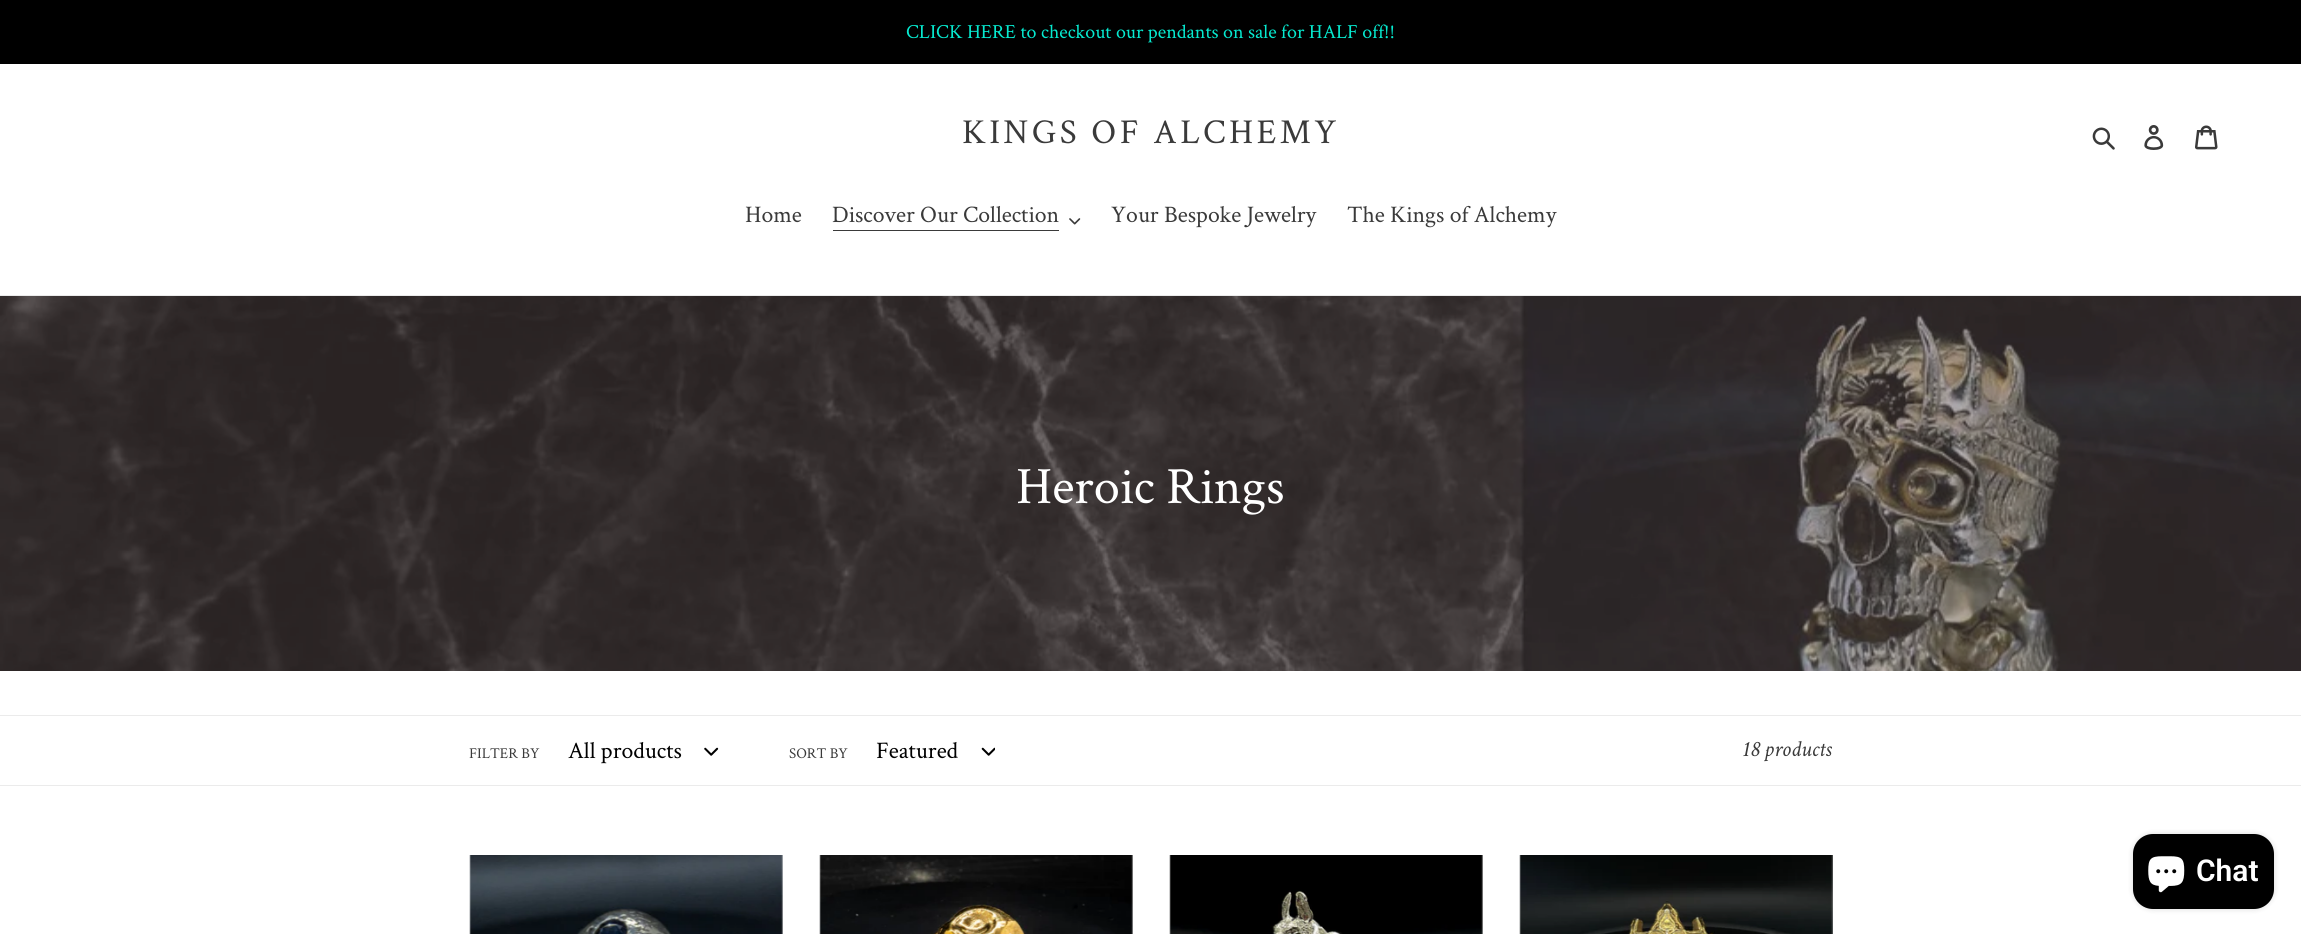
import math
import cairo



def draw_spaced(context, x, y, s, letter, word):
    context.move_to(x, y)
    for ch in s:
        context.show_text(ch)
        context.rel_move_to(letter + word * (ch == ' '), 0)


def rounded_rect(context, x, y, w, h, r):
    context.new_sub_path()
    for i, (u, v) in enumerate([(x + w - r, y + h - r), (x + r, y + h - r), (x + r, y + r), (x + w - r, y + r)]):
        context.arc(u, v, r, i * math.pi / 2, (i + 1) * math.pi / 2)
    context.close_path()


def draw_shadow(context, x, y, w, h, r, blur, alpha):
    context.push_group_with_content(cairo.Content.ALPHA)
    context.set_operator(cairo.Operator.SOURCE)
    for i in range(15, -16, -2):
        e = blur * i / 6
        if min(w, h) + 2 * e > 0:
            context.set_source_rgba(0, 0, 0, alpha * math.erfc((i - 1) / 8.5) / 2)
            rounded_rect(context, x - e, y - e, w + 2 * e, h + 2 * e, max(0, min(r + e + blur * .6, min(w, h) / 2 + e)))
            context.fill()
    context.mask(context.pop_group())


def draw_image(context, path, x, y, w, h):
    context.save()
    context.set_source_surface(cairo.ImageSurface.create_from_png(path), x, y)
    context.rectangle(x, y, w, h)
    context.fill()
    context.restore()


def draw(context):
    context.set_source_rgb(1, 1, 1)
    context.paint()
    context.set_source_rgb(0, 0, 0)
    context.rectangle(0, 0, 2301, 64)
    context.fill()
    draw_image(context, "images/1.png", 2092, 127, 23, 23)
    draw_image(context, "images/2.png", 2144, 125, 20, 25)
    draw_image(context, "images/3.png", 2195, 125, 23, 25)
    context.set_source_rgb(235 / 255, 235 / 255, 235 / 255)
    context.rectangle(0, 295, 2301, 1)
    context.fill()
    context.set_source_rgb(58 / 255, 58 / 255, 58 / 255)
    context.rectangle(833, 230, 226, 1)
    context.fill()
    draw_image(context, "images/4.png", 1069, 218, 12, 7)
    draw_image(context, "images/5.png", 0, 296, 2301, 375)
    context.set_source_rgb(235 / 255, 235 / 255, 235 / 255)
    context.rectangle(0, 715, 2301, 1)
    context.fill()
    context.rectangle(0, 785, 2301, 1)
    context.fill()
    draw_image(context, "images/6.png", 704, 747, 15, 9)
    draw_image(context, "images/7.png", 981, 747, 14, 9)
    draw_image(context, "images/8.png", 469, 855, 314, 79)
    draw_image(context, "images/9.png", 819, 855, 314, 79)
    draw_image(context, "images/10.png", 1169, 855, 314, 79)
    draw_image(context, "images/11.png", 1519, 855, 314, 79)
    context.set_source_rgb(0, 0, 0)
    draw_shadow(context, 2133, 834, 141, 75, 20, 3, 0.15)
    context.set_source_rgb(0, 0, 0)
    rounded_rect(context, 2133, 834, 141, 75, 20)
    context.fill()
    draw_image(context, "images/12.png", 2148, 856, 37, 37)
    context.select_font_face("Crimson Text")
    context.set_font_size(20)
    context.set_source_rgb(6 / 255, 234 / 255, 208 / 255)
    context.move_to(906, 38)
    context.show_text("CLICK HERE to checkout our pendants on sale for HALF off!!")
    context.set_font_size(35)
    context.set_source_rgb(58 / 255, 58 / 255, 58 / 255)
    draw_spaced(context, 962, 143, "KINGS OF ALCHEMY", 3.5, 0)
    context.set_font_size(23.75)
    context.move_to(745, 222)
    context.show_text("Home")
    context.move_to(832, 222)
    context.show_text("Discover Our Collection")
    context.move_to(1111, 222)
    context.show_text("Your Bespoke Jewelry")
    context.move_to(1347, 222)
    context.show_text("The Kings of Alchemy")
    context.set_font_size(52.5)
    context.set_source_rgb(1, 1, 1)
    context.move_to(1016, 503)
    context.show_text("Heroic Rings")
    context.set_font_size(15)
    context.set_source_rgb(58 / 255, 58 / 255, 58 / 255)
    context.move_to(469, 758)
    context.show_text("FILTER BY")
    context.set_font_size(23.75)
    context.set_source_rgb(0, 0, 0)
    context.move_to(568, 758)
    context.show_text("All products")
    context.set_font_size(15)
    context.set_source_rgb(58 / 255, 58 / 255, 58 / 255)
    context.move_to(789, 758)
    context.show_text("SORT BY")
    context.set_font_size(23.75)
    context.set_source_rgb(0, 0, 0)
    context.move_to(876, 758)
    context.show_text("Featured")
    context.select_font_face("Crimson Text", cairo.FontSlant.ITALIC)
    context.set_font_size(22.5)
    context.set_source_rgb(58 / 255, 58 / 255, 58 / 255)
    context.move_to(1741, 756)
    context.show_text("18 products")
    context.select_font_face("Roboto SemiBold")
    context.set_font_size(30)
    context.set_source_rgb(1, 1, 1)
    context.move_to(2196, 881)
    context.show_text("Chat")


surface = cairo.ImageSurface(cairo.Format.RGB24, 2301, 934)
context = cairo.Context(surface)
options = cairo.FontOptions()
options.set_hint_metrics(cairo.HintMetrics.OFF)
options.set_hint_style(cairo.HintStyle.NONE)
context.set_font_options(options)
context.set_miter_limit(4)
draw(context)
surface.write_to_png("out.png")
